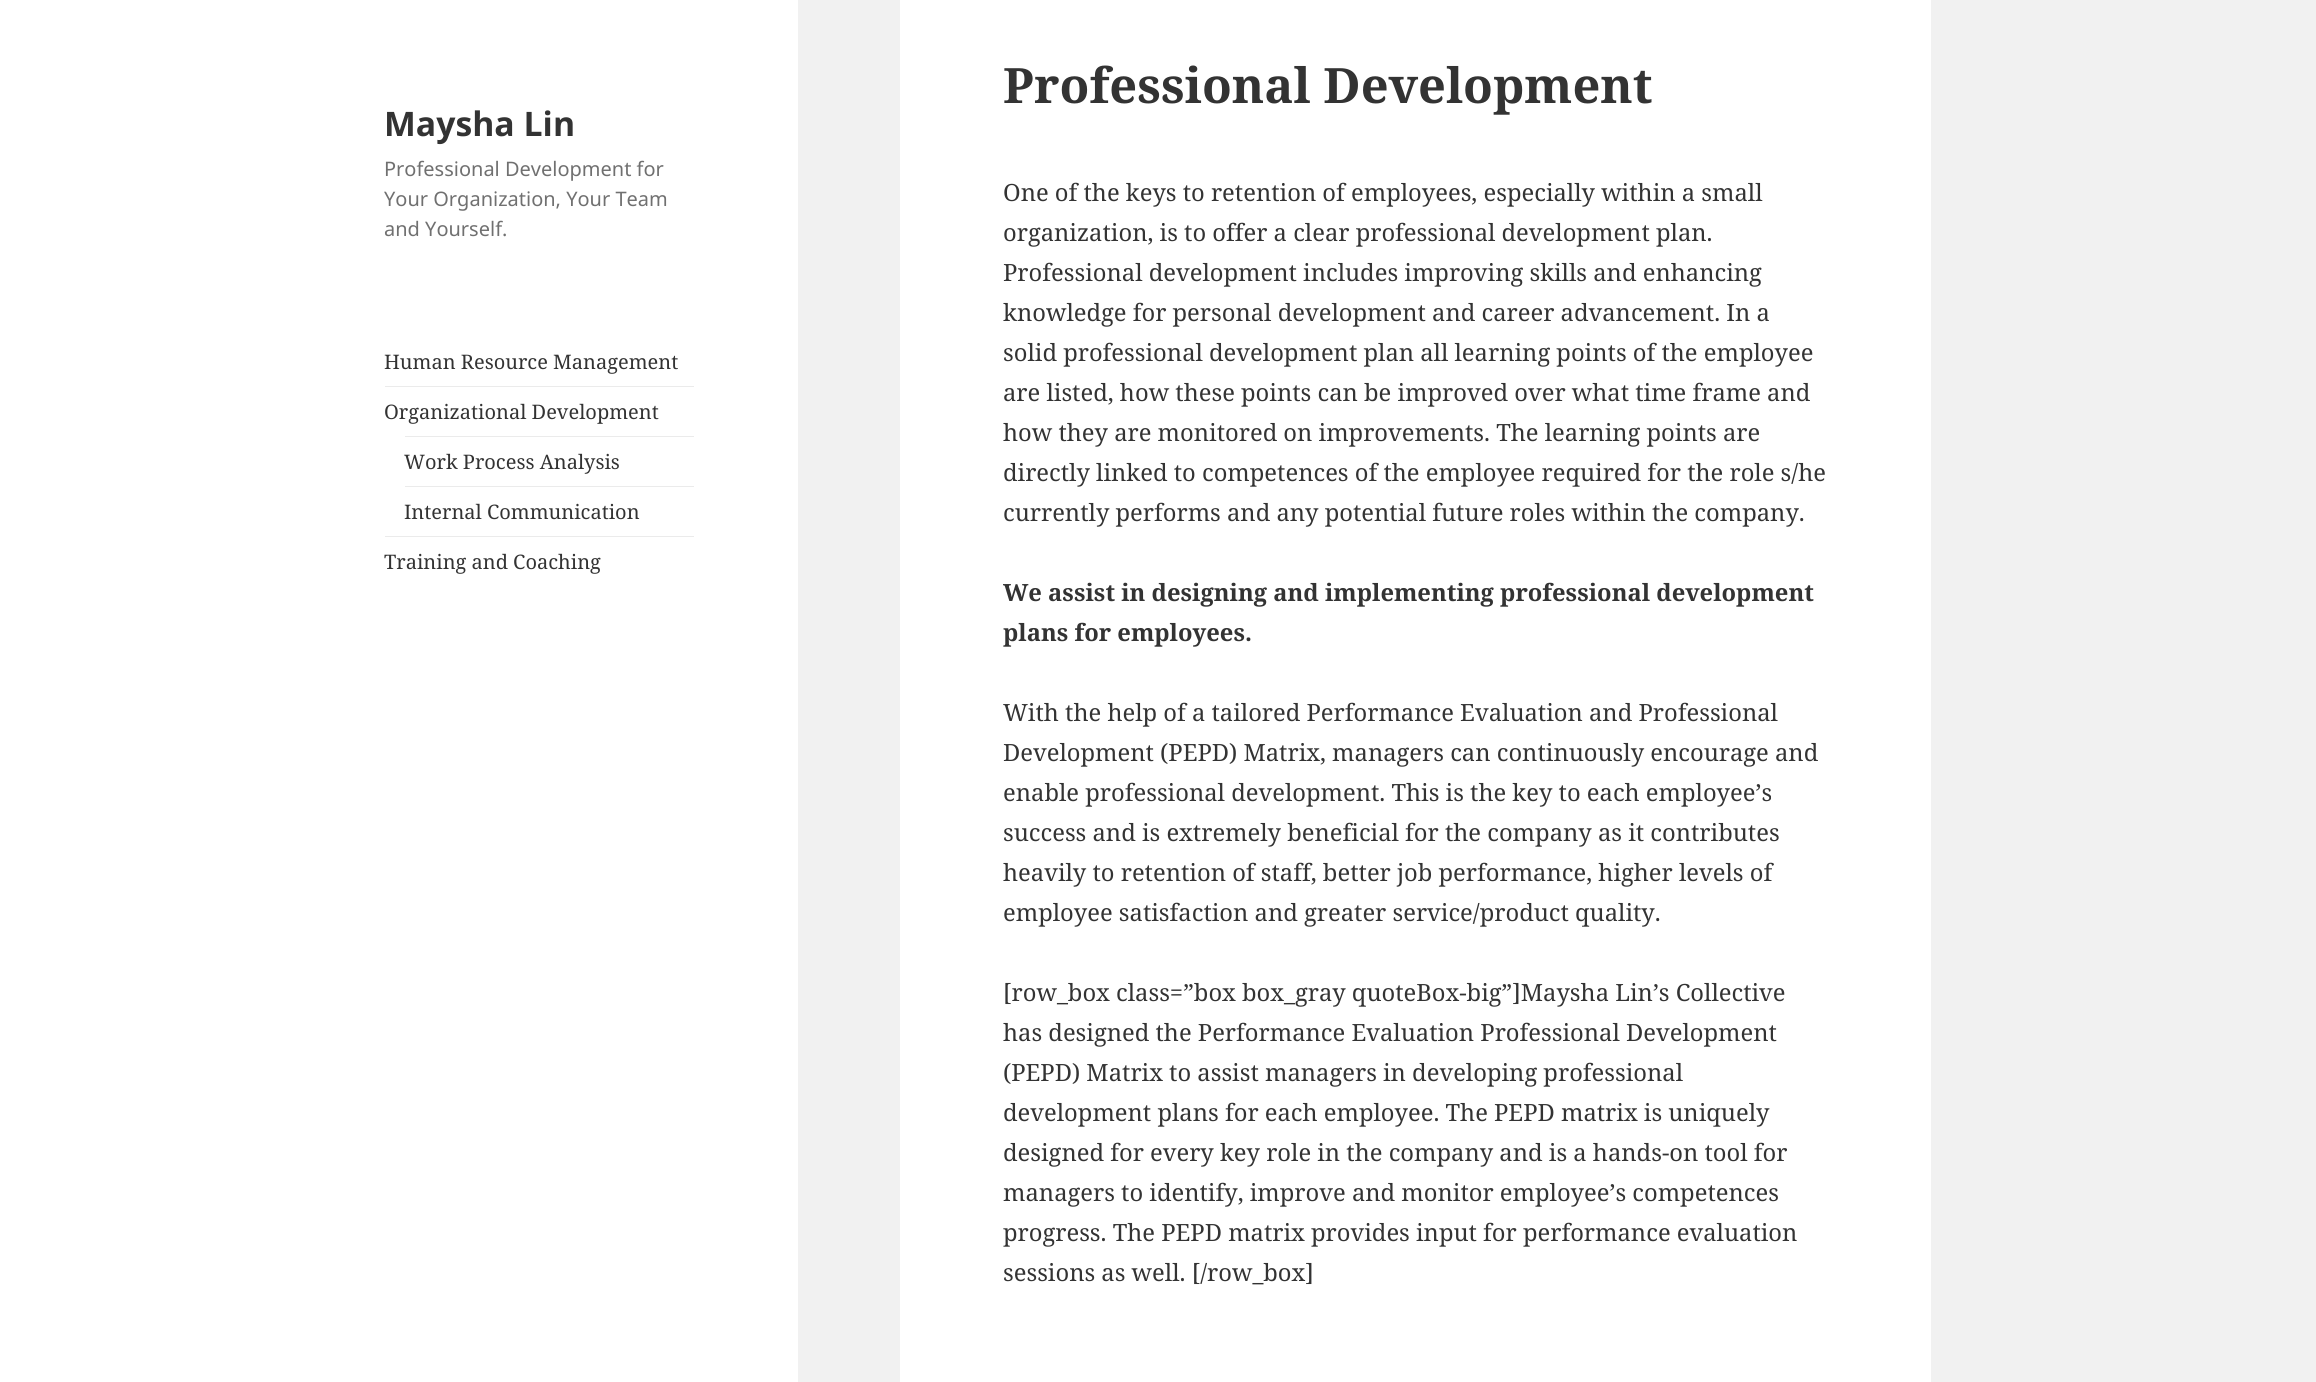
import math
import cairo



def draw(context):
    context.set_source_rgb(241 / 255, 241 / 255, 241 / 255)
    context.paint()
    context.set_source_rgb(1, 1, 1)
    context.rectangle(0, 0, 798, 1382)
    context.fill()
    context.set_source_rgb(235 / 255, 235 / 255, 235 / 255)
    context.rectangle(385, 386, 309, 1)
    context.fill()
    context.rectangle(405, 436, 289, 1)
    context.fill()
    context.rectangle(405, 486, 289, 1)
    context.fill()
    context.rectangle(385, 536, 309, 1)
    context.fill()
    context.set_source_rgb(1, 1, 1)
    context.rectangle(900, 0, 1031, 1382)
    context.fill()
    context.select_font_face("Noto Sans", cairo.FontSlant.NORMAL, cairo.FontWeight.BOLD)
    context.set_font_size(33.75)
    context.set_source_rgb(51 / 255, 51 / 255, 51 / 255)
    context.move_to(384, 136)
    context.show_text("Maysha Lin")
    context.select_font_face("Noto Sans")
    context.set_font_size(20)
    context.set_source_rgb(112 / 255, 112 / 255, 112 / 255)
    context.move_to(384, 176)
    context.show_text("Professional Development for")
    context.move_to(384, 206)
    context.show_text("Your Organization, Your Team")
    context.move_to(384, 236)
    context.show_text("and Yourself.")
    context.select_font_face("Noto Serif")
    context.set_source_rgb(51 / 255, 51 / 255, 51 / 255)
    context.move_to(384, 369)
    context.show_text("Human Resource Management")
    context.move_to(384, 419)
    context.show_text("Organizational Development")
    context.move_to(404, 469)
    context.show_text("Work Process Analysis")
    context.move_to(404, 519)
    context.show_text("Internal Communication")
    context.move_to(384, 569)
    context.show_text("Training and Coaching")
    context.select_font_face("Noto Serif", cairo.FontSlant.NORMAL, cairo.FontWeight.BOLD)
    context.set_font_size(48.75)
    context.move_to(1003, 103)
    context.show_text("Professional Development")
    context.select_font_face("Noto Serif")
    context.set_font_size(23.75)
    context.move_to(1003, 201)
    context.show_text("One of the keys to retention of employees, especially within a small")
    context.move_to(1003, 241)
    context.show_text("organization, is to offer a clear professional development plan.")
    context.move_to(1003, 281)
    context.show_text("Professional development includes improving skills and enhancing")
    context.move_to(1003, 321)
    context.show_text("knowledge for personal development and career advancement. In a")
    context.move_to(1003, 361)
    context.show_text("solid professional development plan all learning points of the employee")
    context.move_to(1003, 401)
    context.show_text("are listed, how these points can be improved over what time frame and")
    context.move_to(1003, 441)
    context.show_text("how they are monitored on improvements. The learning points are")
    context.move_to(1003, 481)
    context.show_text("directly linked to competences of the employee required for the role s/he")
    context.move_to(1003, 521)
    context.show_text("currently performs and any potential future roles within the company.")
    context.select_font_face("Noto Serif", cairo.FontSlant.NORMAL, cairo.FontWeight.BOLD)
    context.move_to(1003, 601)
    context.show_text("We assist in designing and implementing professional development")
    context.move_to(1003, 641)
    context.show_text("plans for employees.")
    context.select_font_face("Noto Serif")
    context.move_to(1003, 721)
    context.show_text("With the help of a tailored Performance Evaluation and Professional")
    context.move_to(1003, 761)
    context.show_text("Development (PEPD) Matrix, managers can continuously encourage and")
    context.move_to(1003, 801)
    context.show_text("enable professional development. This is the key to each employee’s")
    context.move_to(1003, 841)
    context.show_text("success and is extremely beneficial for the company as it contributes")
    context.move_to(1003, 881)
    context.show_text("heavily to retention of staff, better job performance, higher levels of")
    context.move_to(1003, 921)
    context.show_text("employee satisfaction and greater service/product quality.")
    context.move_to(1003, 1001)
    context.show_text("[row_box class=”box box_gray quoteBox-big”]Maysha Lin’s Collective")
    context.move_to(1003, 1041)
    context.show_text("has designed the Performance Evaluation Professional Development")
    context.move_to(1003, 1081)
    context.show_text("(PEPD) Matrix to assist managers in developing professional")
    context.move_to(1003, 1121)
    context.show_text("development plans for each employee. The PEPD matrix is uniquely")
    context.move_to(1003, 1161)
    context.show_text("designed for every key role in the company and is a hands-on tool for")
    context.move_to(1003, 1201)
    context.show_text("managers to identify, improve and monitor employee’s competences")
    context.move_to(1003, 1241)
    context.show_text("progress. The PEPD matrix provides input for performance evaluation")
    context.move_to(1003, 1281)
    context.show_text("sessions as well. [/row_box]")


surface = cairo.ImageSurface(cairo.Format.RGB24, 2316, 1382)
context = cairo.Context(surface)
options = cairo.FontOptions()
options.set_hint_metrics(cairo.HintMetrics.OFF)
options.set_hint_style(cairo.HintStyle.NONE)
context.set_font_options(options)
context.set_miter_limit(4)
draw(context)
surface.write_to_png("out.png")
